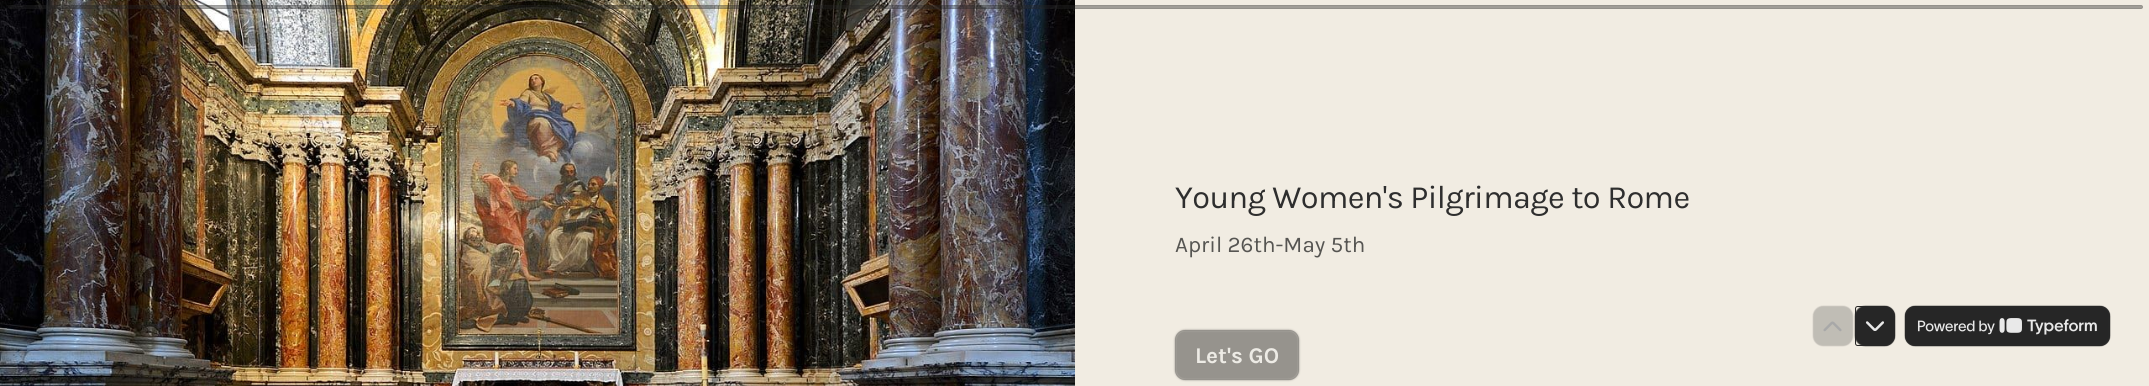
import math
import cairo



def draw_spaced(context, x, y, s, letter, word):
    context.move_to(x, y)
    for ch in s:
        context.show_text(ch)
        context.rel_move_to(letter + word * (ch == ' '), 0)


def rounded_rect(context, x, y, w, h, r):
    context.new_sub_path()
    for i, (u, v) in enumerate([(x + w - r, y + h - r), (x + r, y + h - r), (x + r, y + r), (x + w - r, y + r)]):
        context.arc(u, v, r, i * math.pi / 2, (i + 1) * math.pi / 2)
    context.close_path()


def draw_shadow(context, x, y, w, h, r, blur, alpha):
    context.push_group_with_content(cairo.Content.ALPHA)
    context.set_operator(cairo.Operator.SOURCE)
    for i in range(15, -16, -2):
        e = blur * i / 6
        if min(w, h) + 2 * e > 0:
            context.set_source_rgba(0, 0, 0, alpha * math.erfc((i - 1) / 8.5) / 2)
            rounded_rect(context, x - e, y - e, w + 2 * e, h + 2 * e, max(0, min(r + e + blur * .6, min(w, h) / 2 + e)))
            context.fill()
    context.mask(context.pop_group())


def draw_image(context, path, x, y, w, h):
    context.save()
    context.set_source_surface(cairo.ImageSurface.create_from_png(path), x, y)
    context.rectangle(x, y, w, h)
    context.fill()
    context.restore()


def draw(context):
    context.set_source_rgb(241 / 255, 236 / 255, 226 / 255)
    context.paint()
    draw_image(context, "images/1.png", 0, 0, 1075, 386)
    context.set_source_rgba(38 / 255, 38 / 255, 38 / 255, 0.4)
    rounded_rect(context, 8, 5, 2135, 4, 2)
    context.fill()
    rounded_rect(context, 8.5, 5.5, 2134, 3, 1.5)
    context.set_source_rgba(38 / 255, 38 / 255, 38 / 255, 0.1)
    context.set_line_width(1)
    context.stroke()
    rounded_rect(context, 1175.5, 330.5, 123, 49, 9.5)
    context.set_source_rgb(150 / 255, 147 / 255, 141 / 255)
    context.stroke()
    context.set_source_rgb(150 / 255, 147 / 255, 141 / 255)
    draw_shadow(context, 1175, 330, 124, 50, 10, 1, 1)
    context.set_source_rgb(38 / 255, 38 / 255, 38 / 255)
    draw_shadow(context, 1813, 306, 40, 40, 10, 0.5, 0.24)
    draw_image(context, "images/2.png", 1823, 321, 19, 11)
    context.new_path()
    context.move_to(1857.5, 306.5)
    context.line_to(1885, 306.5)
    context.curve_to(1890, 306.5, 1894.5, 311, 1894.5, 316)
    context.line_to(1894.5, 336)
    context.curve_to(1894.5, 341, 1890, 345.5, 1885, 345.5)
    context.line_to(1857.5, 345.5)
    context.curve_to(1856.5, 345.5, 1855.5, 344.5, 1855.5, 343.5)
    context.line_to(1855.5, 308.5)
    context.curve_to(1855.5, 307.5, 1856.5, 306.5, 1857.5, 306.5)
    context.close_path()
    context.set_source_rgb(38 / 255, 38 / 255, 38 / 255)
    context.stroke()
    context.set_source_rgb(38 / 255, 38 / 255, 38 / 255)
    draw_shadow(context, 1855, 306, 40, 40, 10, 0.5, 1)
    draw_image(context, "images/3.png", 1865, 321, 19, 10)
    rounded_rect(context, 1905.5, 306.5, 204, 39, 9.5)
    context.set_source_rgb(38 / 255, 38 / 255, 38 / 255)
    context.stroke()
    context.set_source_rgb(38 / 255, 38 / 255, 38 / 255)
    draw_shadow(context, 1905, 306, 205, 40, 10, 0.5, 1)
    draw_image(context, "images/4.png", 1917, 318, 180, 17)
    context.select_font_face("Karla")
    context.set_font_size(32.5)
    context.set_source_rgb(46 / 255, 46 / 255, 46 / 255)
    draw_spaced(context, 1175, 208, "Young Women's Pilgrimage to Rome", -0.6, 0)
    context.set_font_size(22.5)
    context.set_source_rgb(86 / 255, 85 / 255, 82 / 255)
    context.move_to(1175, 252)
    context.show_text("April 26th-May 5th")
    context.select_font_face("Karla", cairo.FontSlant.NORMAL, cairo.FontWeight.BOLD)
    context.set_source_rgb(237 / 255, 235 / 255, 229 / 255)
    context.move_to(1195, 363)
    context.show_text("Let's GO")


surface = cairo.ImageSurface(cairo.Format.RGB24, 2149, 386)
context = cairo.Context(surface)
options = cairo.FontOptions()
options.set_hint_metrics(cairo.HintMetrics.OFF)
options.set_hint_style(cairo.HintStyle.NONE)
context.set_font_options(options)
context.set_miter_limit(4)
draw(context)
surface.write_to_png("out.png")
